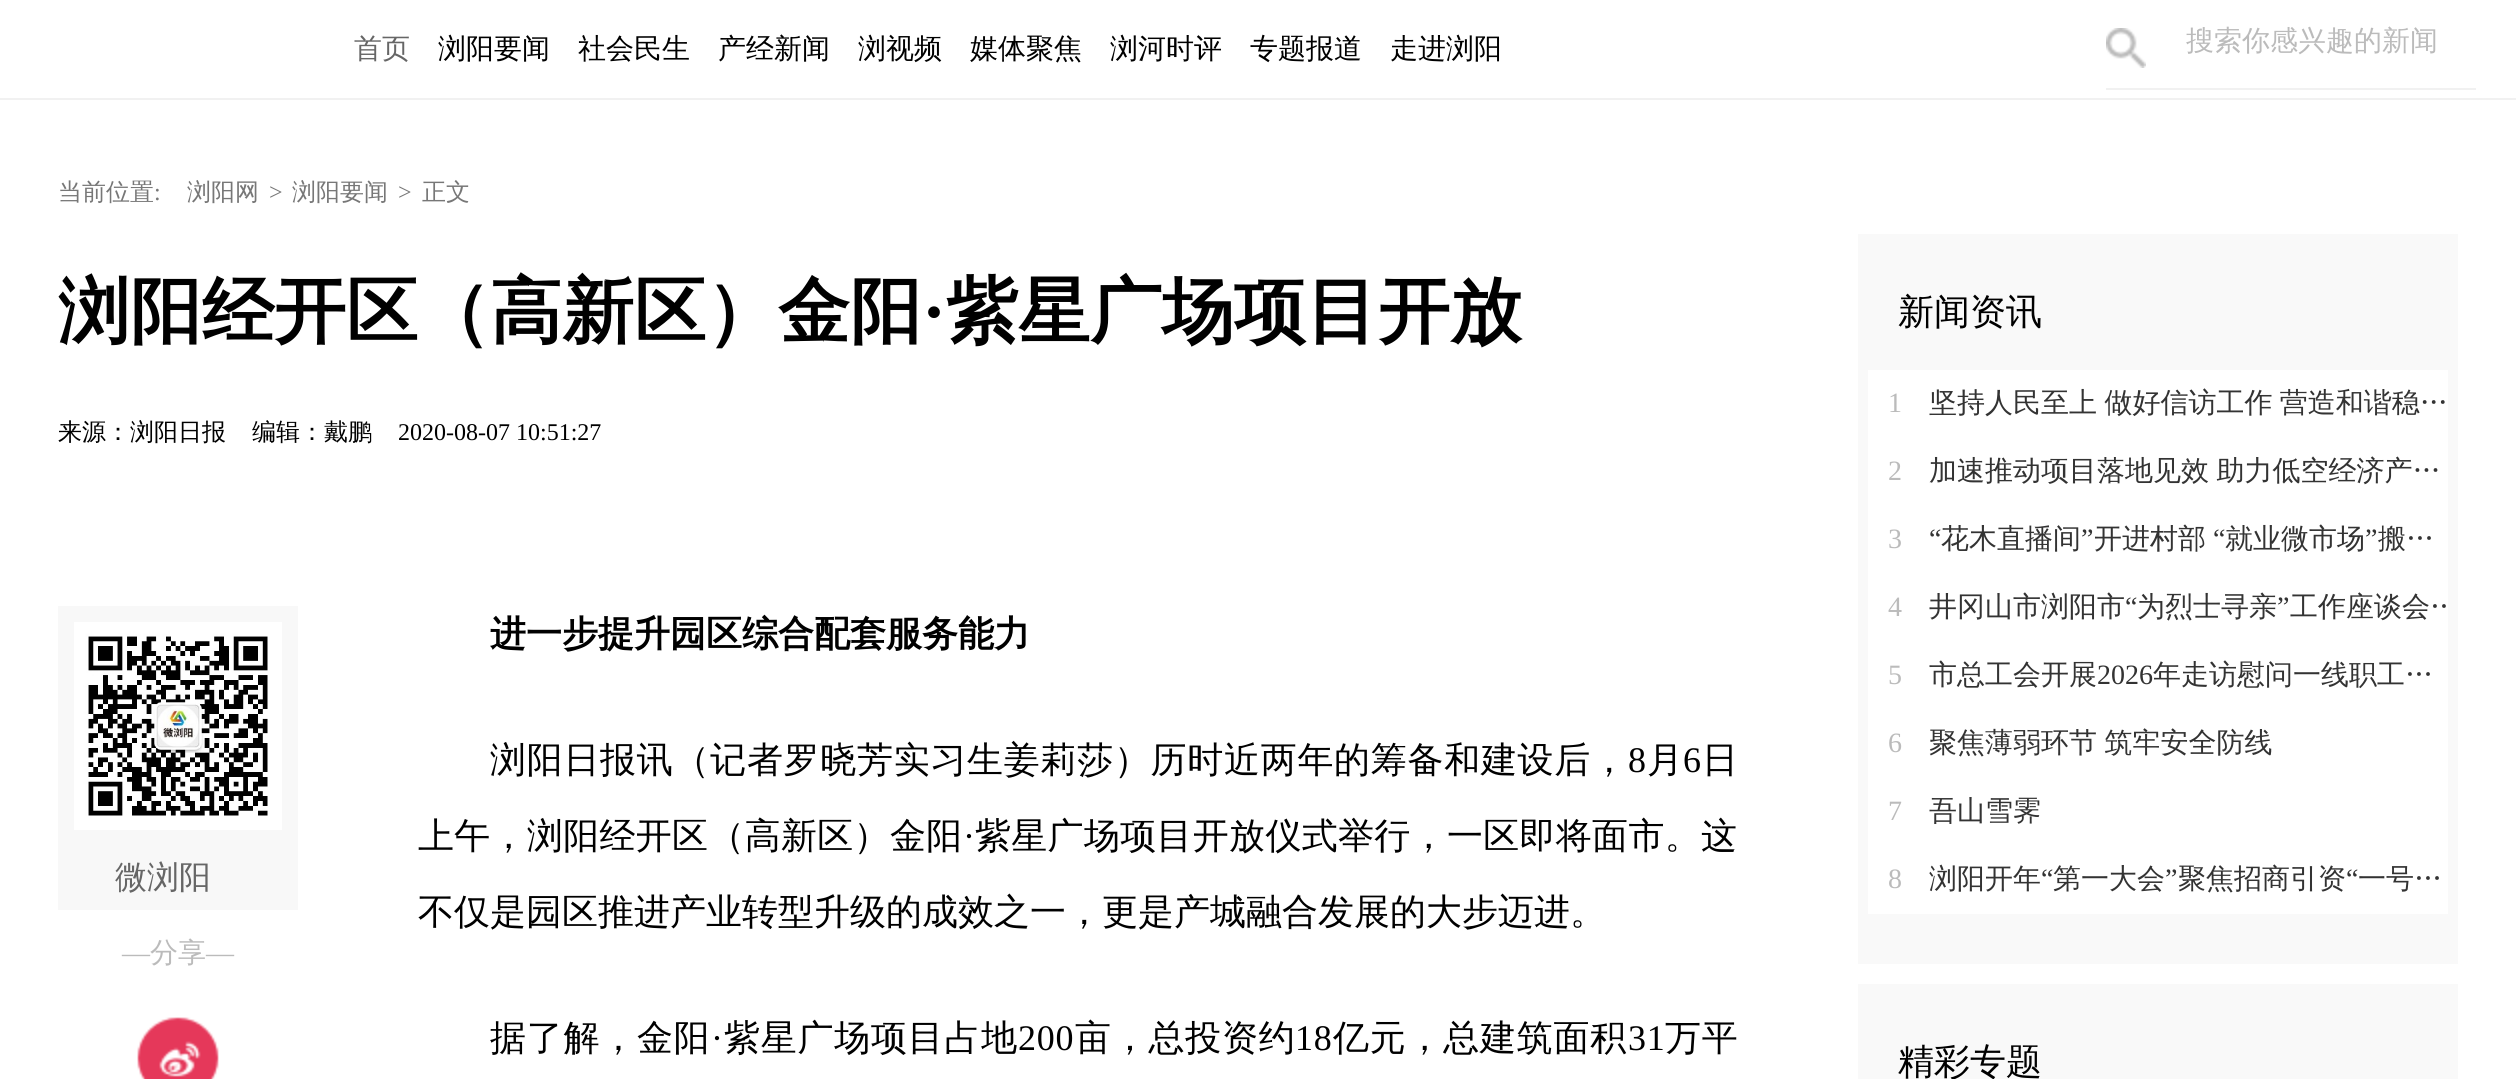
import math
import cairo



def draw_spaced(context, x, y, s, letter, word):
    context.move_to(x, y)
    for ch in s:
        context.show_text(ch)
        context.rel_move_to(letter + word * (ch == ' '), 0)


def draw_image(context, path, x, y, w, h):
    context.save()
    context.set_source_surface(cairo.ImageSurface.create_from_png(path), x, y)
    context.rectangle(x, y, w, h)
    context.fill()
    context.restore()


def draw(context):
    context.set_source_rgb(1, 1, 1)
    context.paint()
    context.set_source_rgb(241 / 255, 241 / 255, 241 / 255)
    context.rectangle(0, 98, 2516, 2)
    context.fill()
    context.rectangle(2106, 88, 370, 2)
    context.fill()
    draw_image(context, "images/1.png", 2106, 28, 40, 40)
    context.set_source_rgb(248 / 255, 248 / 255, 248 / 255)
    context.rectangle(58, 606, 240, 304)
    context.fill()
    draw_image(context, "images/2.png", 74, 622, 208, 208)
    draw_image(context, "images/3.png", 137, 1017, 82, 62)
    context.set_source_rgb(249 / 255, 249 / 255, 249 / 255)
    context.rectangle(1858, 234, 600, 730)
    context.fill()
    context.set_source_rgb(1, 1, 1)
    context.rectangle(1868, 370, 580, 544)
    context.fill()
    context.set_source_rgb(249 / 255, 249 / 255, 249 / 255)
    context.rectangle(1858, 984, 600, 95)
    context.fill()
    context.select_font_face("WenQuanYi Zen Hei Medium")
    context.set_font_size(28)
    context.set_source_rgb(102 / 255, 102 / 255, 102 / 255)
    context.move_to(354, 58)
    context.show_text("首页")
    context.set_source_rgb(0, 0, 0)
    context.move_to(438, 58)
    context.show_text("浏阳要闻")
    context.move_to(578, 58)
    context.show_text("社会民生")
    context.move_to(718, 58)
    context.show_text("产经新闻")
    context.move_to(858, 58)
    context.show_text("浏视频")
    context.move_to(970, 58)
    context.show_text("媒体聚焦")
    context.move_to(1110, 58)
    context.show_text("浏河时评")
    context.move_to(1250, 58)
    context.show_text("专题报道")
    context.move_to(1390, 58)
    context.show_text("走进浏阳")
    context.set_source_rgb(187 / 255, 187 / 255, 187 / 255)
    context.move_to(2186, 50)
    context.show_text("搜索你感兴趣的新闻")
    context.set_font_size(24)
    context.set_source_rgb(119 / 255, 119 / 255, 119 / 255)
    context.move_to(58, 200)
    context.show_text("当前位置")
    context.select_font_face("Liberation Serif")
    context.move_to(154, 200)
    context.show_text(":")
    context.select_font_face("WenQuanYi Zen Hei Medium")
    context.move_to(187, 200)
    context.show_text("浏阳网")
    context.select_font_face("Liberation Serif")
    context.move_to(269, 200)
    context.show_text(">")
    context.select_font_face("WenQuanYi Zen Hei Medium")
    context.move_to(292, 200)
    context.show_text("浏阳要闻")
    context.select_font_face("Liberation Serif")
    context.move_to(398, 200)
    context.show_text(">")
    context.select_font_face("WenQuanYi Zen Hei Medium")
    context.move_to(422, 200)
    context.show_text("正文")
    context.select_font_face("WenQuanYi Zen Hei", cairo.FontSlant.NORMAL, cairo.FontWeight.BOLD)
    context.set_font_size(72)
    context.set_source_rgb(0, 0, 0)
    context.move_to(58, 336)
    context.show_text("浏阳经开区（高新区）金阳")
    context.select_font_face("Liberation Serif", cairo.FontSlant.NORMAL, cairo.FontWeight.BOLD)
    context.move_to(922, 336)
    context.show_text("·")
    context.select_font_face("WenQuanYi Zen Hei", cairo.FontSlant.NORMAL, cairo.FontWeight.BOLD)
    context.move_to(946, 336)
    context.show_text("紫星广场项目开放")
    context.select_font_face("WenQuanYi Zen Hei Medium")
    context.set_font_size(24)
    context.move_to(58, 440)
    context.show_text("来源：浏阳日报")
    context.move_to(252, 440)
    context.show_text("编辑：戴鹏")
    context.select_font_face("Liberation Serif")
    context.move_to(398, 440)
    context.show_text("2020-08-07 10:51:27")
    context.select_font_face("WenQuanYi Zen Hei Medium")
    context.set_font_size(32)
    context.set_source_rgb(102 / 255, 102 / 255, 102 / 255)
    context.move_to(115, 888)
    context.show_text("微浏阳")
    context.select_font_face("Liberation Serif")
    context.set_font_size(28)
    context.set_source_rgb(187 / 255, 187 / 255, 187 / 255)
    context.move_to(122, 962)
    context.show_text("—")
    context.select_font_face("WenQuanYi Zen Hei Medium")
    context.move_to(150, 962)
    context.show_text("分享")
    context.select_font_face("Liberation Serif")
    context.move_to(206, 962)
    context.show_text("—")
    context.select_font_face("WenQuanYi Zen Hei", cairo.FontSlant.NORMAL, cairo.FontWeight.BOLD)
    context.set_font_size(36)
    context.set_source_rgb(0, 0, 0)
    context.move_to(490, 646)
    context.show_text("进一步提升园区综合配套服务能力")
    context.select_font_face("WenQuanYi Zen Hei Medium")
    draw_spaced(context, 490, 772, "浏阳日报讯（记者罗晓芳实习生姜莉莎）历时近两年的筹备和建设后，", 0.7, 0)
    context.select_font_face("Liberation Serif")
    draw_spaced(context, 1628, 772, "8", 0.7, 0)
    context.select_font_face("WenQuanYi Zen Hei Medium")
    draw_spaced(context, 1647, 772, "月", 0.7, 0)
    context.select_font_face("Liberation Serif")
    draw_spaced(context, 1683, 772, "6", 0.7, 0)
    context.select_font_face("WenQuanYi Zen Hei Medium")
    draw_spaced(context, 1702, 772, "日", 0.7, 0)
    draw_spaced(context, 418, 848, "上午，浏阳经开区（高新区）金阳", 0.3, 0)
    context.select_font_face("Liberation Serif")
    draw_spaced(context, 963, 848, "·", 0.3, 0)
    context.select_font_face("WenQuanYi Zen Hei Medium")
    draw_spaced(context, 975, 848, "紫星广场项目开放仪式举行，一区即将面市。这", 0.3, 0)
    context.move_to(418, 924)
    context.show_text("不仅是园区推进产业转型升级的成效之一，更是产城融合发展的大步迈进。")
    draw_spaced(context, 490, 1050, "据了解，金阳", 0.75, 0)
    context.select_font_face("Liberation Serif")
    draw_spaced(context, 711, 1050, "·", 0.75, 0)
    context.select_font_face("WenQuanYi Zen Hei Medium")
    draw_spaced(context, 724, 1050, "紫星广场项目占地", 0.75, 0)
    context.select_font_face("Liberation Serif")
    draw_spaced(context, 1018, 1050, "200", 0.75, 0)
    context.select_font_face("WenQuanYi Zen Hei Medium")
    draw_spaced(context, 1075, 1050, "亩，总投资约", 0.75, 0)
    context.select_font_face("Liberation Serif")
    draw_spaced(context, 1295, 1050, "18", 0.75, 0)
    context.select_font_face("WenQuanYi Zen Hei Medium")
    draw_spaced(context, 1333, 1050, "亿元，总建筑面积", 0.75, 0)
    context.select_font_face("Liberation Serif")
    draw_spaced(context, 1628, 1050, "31", 0.75, 0)
    context.select_font_face("WenQuanYi Zen Hei Medium")
    draw_spaced(context, 1665, 1050, "万平", 0.75, 0)
    context.move_to(1898, 324)
    context.show_text("新闻资讯")
    context.select_font_face("Liberation Serif")
    context.set_font_size(28)
    context.set_source_rgb(187 / 255, 187 / 255, 187 / 255)
    context.move_to(1888, 412)
    context.show_text("1")
    context.select_font_face("WenQuanYi Zen Hei Medium")
    context.set_source_rgb(51 / 255, 51 / 255, 51 / 255)
    draw_spaced(context, 1929, 412, "坚持人民至上 做好信访工作 营造和谐稳…", 0, -1)
    context.select_font_face("Liberation Serif")
    context.set_source_rgb(187 / 255, 187 / 255, 187 / 255)
    context.move_to(1888, 480)
    context.show_text("2")
    context.select_font_face("WenQuanYi Zen Hei Medium")
    context.set_source_rgb(51 / 255, 51 / 255, 51 / 255)
    draw_spaced(context, 1929, 480, "加速推动项目落地见效 助力低空经济产…", 0, -1)
    context.select_font_face("Liberation Serif")
    context.set_source_rgb(187 / 255, 187 / 255, 187 / 255)
    context.move_to(1888, 548)
    context.show_text("3")
    context.set_source_rgb(51 / 255, 51 / 255, 51 / 255)
    context.move_to(1929, 548)
    context.show_text("“")
    context.select_font_face("WenQuanYi Zen Hei Medium")
    context.move_to(1941, 548)
    context.show_text("花木直播间")
    context.select_font_face("Liberation Serif")
    context.move_to(2081, 548)
    context.show_text("”")
    context.select_font_face("WenQuanYi Zen Hei Medium")
    context.move_to(2094, 548)
    context.show_text("开进村部")
    context.select_font_face("Liberation Serif")
    context.move_to(2213, 548)
    context.show_text("“")
    context.select_font_face("WenQuanYi Zen Hei Medium")
    context.move_to(2225, 548)
    context.show_text("就业微市场")
    context.select_font_face("Liberation Serif")
    context.move_to(2365, 548)
    context.show_text("”")
    context.select_font_face("WenQuanYi Zen Hei Medium")
    context.move_to(2378, 548)
    context.show_text("搬…")
    context.select_font_face("Liberation Serif")
    context.set_source_rgb(187 / 255, 187 / 255, 187 / 255)
    context.move_to(1888, 616)
    context.show_text("4")
    context.select_font_face("WenQuanYi Zen Hei Medium")
    context.set_source_rgb(51 / 255, 51 / 255, 51 / 255)
    context.move_to(1929, 616)
    context.show_text("井冈山市浏阳市")
    context.select_font_face("Liberation Serif")
    context.move_to(2125, 616)
    context.show_text("“")
    context.select_font_face("WenQuanYi Zen Hei Medium")
    context.move_to(2137, 616)
    context.show_text("为烈士寻亲")
    context.select_font_face("Liberation Serif")
    context.move_to(2277, 616)
    context.show_text("”")
    context.save()
    context.rectangle(1868, 574, 580, 68)
    context.clip()
    context.select_font_face("WenQuanYi Zen Hei Medium")
    context.move_to(2290, 616)
    context.show_text("工作座谈会…")
    context.restore()
    context.set_source_rgb(187 / 255, 187 / 255, 187 / 255)
    context.move_to(1888, 684)
    context.show_text("5")
    context.select_font_face("WenQuanYi Zen Hei Medium")
    context.set_source_rgb(51 / 255, 51 / 255, 51 / 255)
    context.move_to(1929, 684)
    context.show_text("市总工会开展")
    context.select_font_face("Liberation Serif")
    context.move_to(2097, 684)
    context.show_text("2026")
    context.select_font_face("WenQuanYi Zen Hei Medium")
    context.move_to(2153, 684)
    context.show_text("年走访慰问一线职工…")
    context.select_font_face("Liberation Serif")
    context.set_source_rgb(187 / 255, 187 / 255, 187 / 255)
    context.move_to(1888, 752)
    context.show_text("6")
    context.select_font_face("WenQuanYi Zen Hei Medium")
    context.set_source_rgb(51 / 255, 51 / 255, 51 / 255)
    draw_spaced(context, 1929, 752, "聚焦薄弱环节 筑牢安全防线", 0, -1)
    context.select_font_face("Liberation Serif")
    context.set_source_rgb(187 / 255, 187 / 255, 187 / 255)
    context.move_to(1888, 820)
    context.show_text("7")
    context.select_font_face("WenQuanYi Zen Hei Medium")
    context.set_source_rgb(51 / 255, 51 / 255, 51 / 255)
    context.move_to(1929, 820)
    context.show_text("吾山雪霁")
    context.select_font_face("Liberation Serif")
    context.set_source_rgb(187 / 255, 187 / 255, 187 / 255)
    context.move_to(1888, 888)
    context.show_text("8")
    context.select_font_face("WenQuanYi Zen Hei Medium")
    context.set_source_rgb(51 / 255, 51 / 255, 51 / 255)
    context.move_to(1929, 888)
    context.show_text("浏阳开年")
    context.select_font_face("Liberation Serif")
    context.move_to(2041, 888)
    context.show_text("“")
    context.select_font_face("WenQuanYi Zen Hei Medium")
    context.move_to(2053, 888)
    context.show_text("第一大会")
    context.select_font_face("Liberation Serif")
    context.move_to(2165, 888)
    context.show_text("”")
    context.select_font_face("WenQuanYi Zen Hei Medium")
    context.move_to(2178, 888)
    context.show_text("聚焦招商引资")
    context.select_font_face("Liberation Serif")
    context.move_to(2346, 888)
    context.show_text("“")
    context.select_font_face("WenQuanYi Zen Hei Medium")
    context.move_to(2358, 888)
    context.show_text("一号…")
    context.set_font_size(36)
    context.set_source_rgb(0, 0, 0)
    context.move_to(1898, 1074)
    context.show_text("精彩专题")


surface = cairo.ImageSurface(cairo.Format.RGB24, 2516, 1079)
context = cairo.Context(surface)
options = cairo.FontOptions()
options.set_hint_metrics(cairo.HintMetrics.OFF)
options.set_hint_style(cairo.HintStyle.NONE)
context.set_font_options(options)
context.set_miter_limit(4)
draw(context)
surface.write_to_png("out.png")
